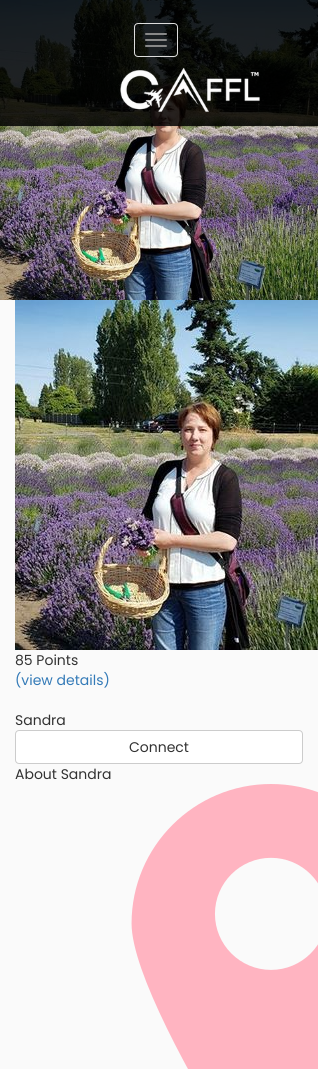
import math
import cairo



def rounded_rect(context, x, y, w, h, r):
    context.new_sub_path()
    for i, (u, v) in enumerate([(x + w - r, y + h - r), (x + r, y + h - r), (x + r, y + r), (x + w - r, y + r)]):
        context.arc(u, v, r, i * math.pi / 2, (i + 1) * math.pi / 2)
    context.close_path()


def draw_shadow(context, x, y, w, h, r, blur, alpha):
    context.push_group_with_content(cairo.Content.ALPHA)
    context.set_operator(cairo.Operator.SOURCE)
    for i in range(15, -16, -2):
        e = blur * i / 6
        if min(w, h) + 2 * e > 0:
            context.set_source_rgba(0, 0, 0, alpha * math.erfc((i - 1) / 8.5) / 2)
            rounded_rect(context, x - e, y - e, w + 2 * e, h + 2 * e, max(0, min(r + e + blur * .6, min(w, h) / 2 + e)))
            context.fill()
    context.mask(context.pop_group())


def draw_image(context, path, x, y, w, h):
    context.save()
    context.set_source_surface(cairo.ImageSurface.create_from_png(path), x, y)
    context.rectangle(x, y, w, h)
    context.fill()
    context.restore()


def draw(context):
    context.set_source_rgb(250 / 255, 250 / 255, 250 / 255)
    context.paint()
    draw_image(context, "images/2.png", 0, 0, 318, 300)
    context.save()
    context.rectangle(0, 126, 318, 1)
    context.clip()
    context.set_source_rgb(0, 0, 0)
    draw_shadow(context, 0, 1, 318, 126, 0, 0.5, 0.05)
    context.restore()
    context.set_source_rgba(0, 0, 0, 0.85)
    context.rectangle(0, 0, 318, 126)
    context.fill()
    rounded_rect(context, 134.5, 23.5, 43, 33, 3.5)
    context.set_source_rgb(221 / 255, 221 / 255, 221 / 255)
    context.set_line_width(1)
    context.stroke()
    context.set_source_rgb(136 / 255, 136 / 255, 136 / 255)
    rounded_rect(context, 145, 33, 22, 2, 1)
    context.fill()
    rounded_rect(context, 145, 39, 22, 2, 1)
    context.fill()
    rounded_rect(context, 145, 45, 22, 2, 1)
    context.fill()
    draw_image(context, "images/1.png", 120, 67, 140, 45)
    draw_image(context, "images/3.png", 15, 300, 303, 350)
    context.set_source_rgb(1, 1, 1)
    rounded_rect(context, 15.5, 730.5, 287, 33, 3.5)
    context.fill_preserve()
    context.set_source_rgb(204 / 255, 204 / 255, 204 / 255)
    context.stroke()
    draw_image(context, "images/4.png", 131, 784, 187, 285)
    context.select_font_face("Poppins")
    context.set_font_size(14)
    context.set_source_rgb(50 / 255, 50 / 255, 50 / 255)
    context.move_to(15, 665)
    context.show_text("85 Points")
    context.set_source_rgb(51 / 255, 122 / 255, 183 / 255)
    context.move_to(15, 685)
    context.show_text("(view details)")
    context.set_source_rgb(50 / 255, 50 / 255, 50 / 255)
    context.move_to(15, 725)
    context.show_text("Sandra")
    context.move_to(129, 752)
    context.show_text("Connect")
    context.move_to(15, 779)
    context.show_text("About Sandra")


surface = cairo.ImageSurface(cairo.Format.RGB24, 318, 1069)
context = cairo.Context(surface)
options = cairo.FontOptions()
options.set_hint_metrics(cairo.HintMetrics.OFF)
options.set_hint_style(cairo.HintStyle.NONE)
context.set_font_options(options)
context.set_miter_limit(4)
draw(context)
surface.write_to_png("out.png")
